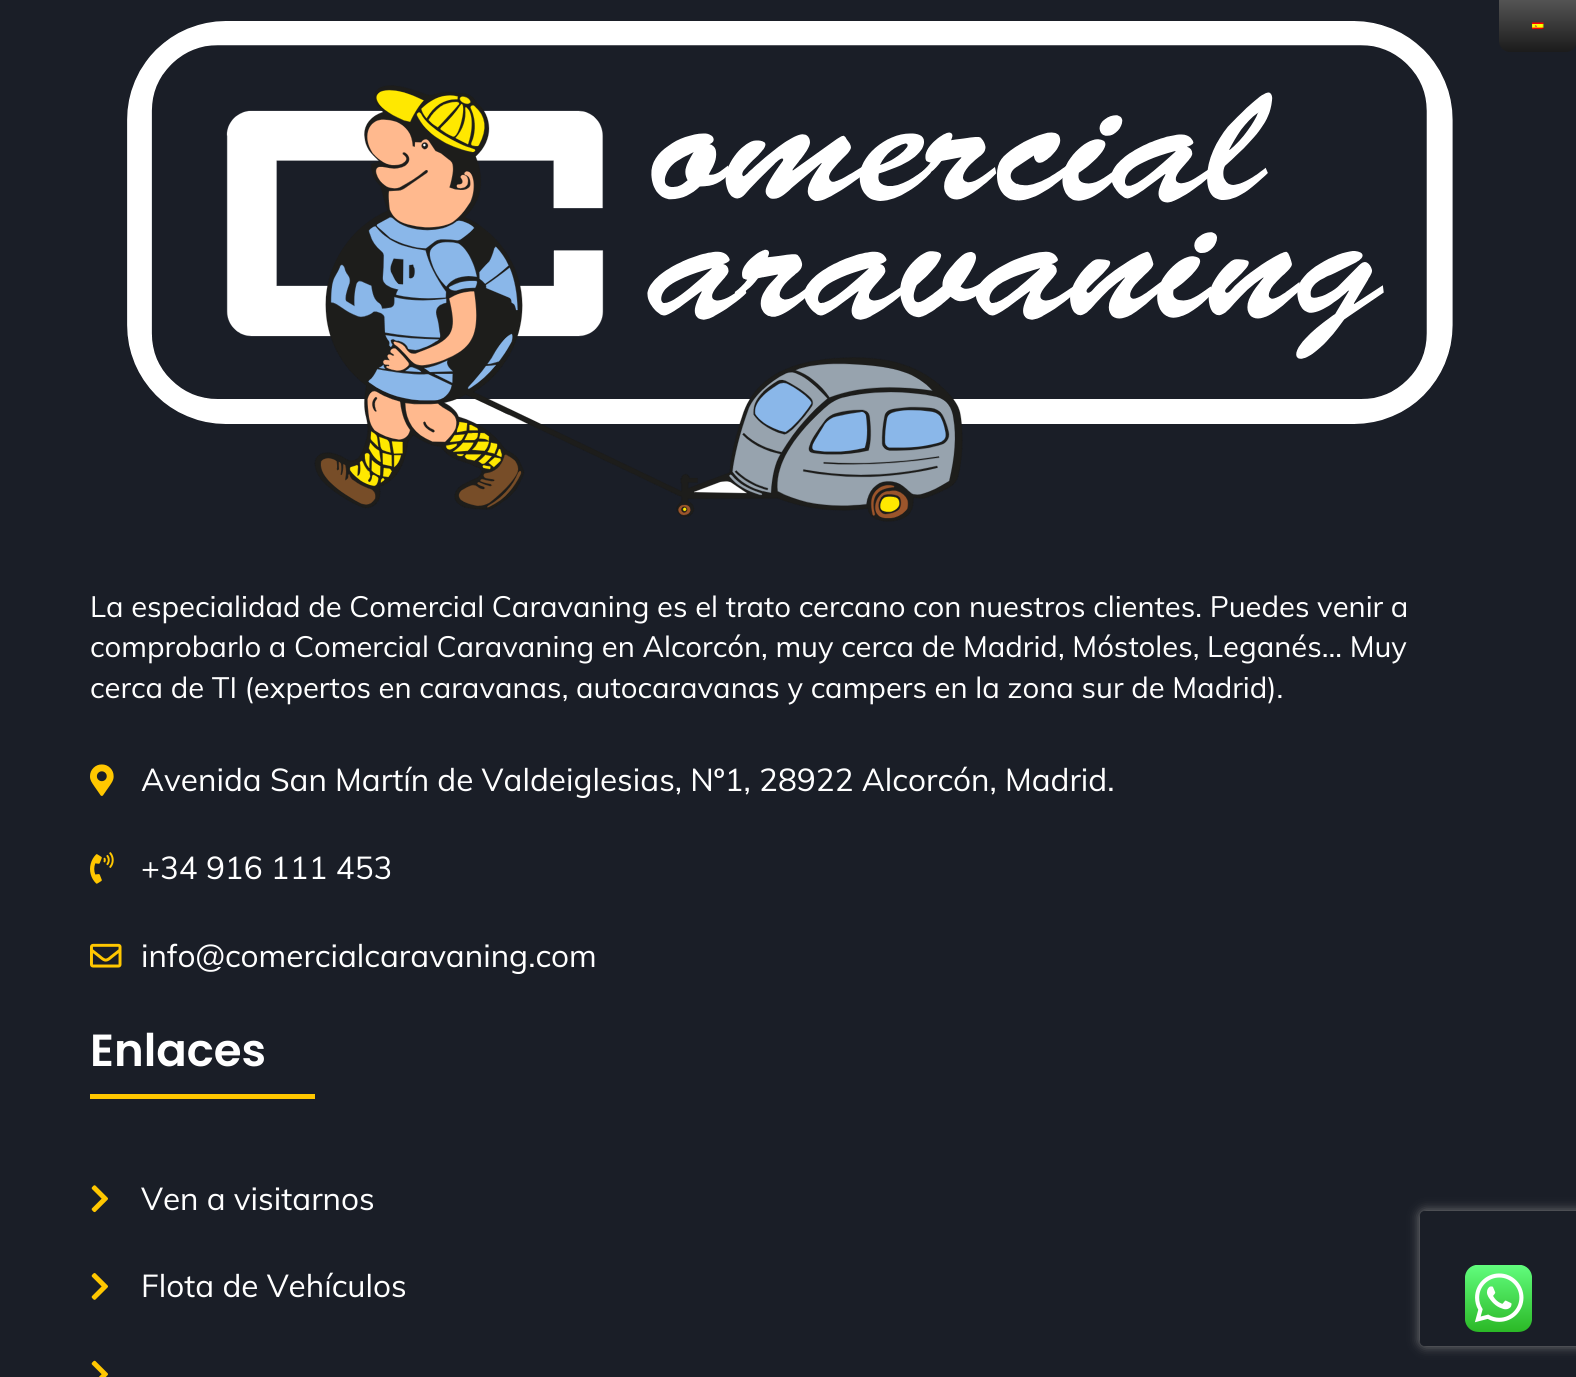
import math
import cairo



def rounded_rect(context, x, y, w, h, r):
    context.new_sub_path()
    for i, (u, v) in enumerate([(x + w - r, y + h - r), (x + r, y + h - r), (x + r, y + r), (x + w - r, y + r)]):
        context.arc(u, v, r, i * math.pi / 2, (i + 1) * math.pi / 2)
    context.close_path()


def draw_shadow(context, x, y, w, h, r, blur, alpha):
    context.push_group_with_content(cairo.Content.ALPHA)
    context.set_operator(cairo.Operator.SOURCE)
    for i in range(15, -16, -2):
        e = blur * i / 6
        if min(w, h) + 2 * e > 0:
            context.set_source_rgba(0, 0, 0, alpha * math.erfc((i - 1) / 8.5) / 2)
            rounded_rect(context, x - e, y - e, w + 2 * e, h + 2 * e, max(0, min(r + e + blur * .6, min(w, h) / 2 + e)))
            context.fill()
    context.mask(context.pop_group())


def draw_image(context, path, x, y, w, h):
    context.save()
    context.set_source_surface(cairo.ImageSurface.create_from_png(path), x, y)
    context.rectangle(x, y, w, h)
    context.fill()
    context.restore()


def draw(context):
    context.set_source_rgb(26 / 255, 30 / 255, 39 / 255)
    context.paint()
    gradient = cairo.LinearGradient(1538, 52, 1538, 0)
    gradient.add_color_stop_rgba(0, 27 / 255, 27 / 255, 27 / 255, 1)
    gradient.add_color_stop_rgba(1, 84 / 255, 84 / 255, 84 / 255, 1)
    context.set_source(gradient)
    context.new_path()
    context.move_to(1499, 0)
    context.line_to(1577, 0)
    context.line_to(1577, 41)
    context.curve_to(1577, 47, 1572, 52, 1566, 52)
    context.line_to(1510, 52)
    context.curve_to(1504, 52, 1499, 47, 1499, 41)
    context.close_path()
    context.fill()
    draw_image(context, "images/1.png", 1532, 22, 12, 8)
    draw_image(context, "images/2.png", 127, 21, 1326, 501)
    draw_image(context, "images/3.png", 90, 764, 24, 32)
    draw_image(context, "images/4.png", 90, 852, 24, 32)
    draw_image(context, "images/5.png", 90, 943, 32, 25)
    context.set_source_rgb(1, 199 / 255, 0)
    context.rectangle(90, 1094, 225, 5)
    context.fill()
    draw_image(context, "images/6.png", 91, 1185, 17, 28)
    draw_image(context, "images/7.png", 91, 1273, 17, 27)
    draw_image(context, "images/8.png", 91, 1360, 17, 17)
    context.save()
    context.set_fill_rule(cairo.FillRule.EVEN_ODD)
    context.new_path()
    context.move_to(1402, 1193)
    context.line_to(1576, 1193)
    context.line_to(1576, 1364)
    context.line_to(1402, 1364)
    context.close_path()
    context.move_to(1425, 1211)
    context.line_to(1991, 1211)
    context.curve_to(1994, 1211, 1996, 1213, 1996, 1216)
    context.line_to(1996, 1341)
    context.curve_to(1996, 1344, 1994, 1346, 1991, 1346)
    context.line_to(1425, 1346)
    context.curve_to(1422, 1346, 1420, 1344, 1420, 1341)
    context.line_to(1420, 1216)
    context.curve_to(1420, 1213, 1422, 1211, 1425, 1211)
    context.close_path()
    context.clip()
    context.set_source_rgb(128 / 255, 128 / 255, 128 / 255)
    draw_shadow(context, 1420, 1211, 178, 135, 5, 5.5, 1)
    context.restore()
    draw_image(context, "images/9.png", 1465, 1265, 67, 67)
    context.select_font_face("Muli")
    context.set_font_size(29.25)
    context.set_source_rgb(1, 1, 1)
    context.move_to(90, 617)
    context.show_text("La especialidad de Comercial Caravaning es el trato cercano con nuestros clientes. Puedes venir a")
    context.move_to(90, 657)
    context.show_text("comprobarlo a Comercial Caravaning en Alcorcón, muy cerca de Madrid, Móstoles, Leganés… Muy")
    context.move_to(90, 698)
    context.show_text("cerca de TI (expertos en caravanas, autocaravanas y campers en la zona sur de Madrid).")
    context.set_font_size(31.5)
    context.move_to(141, 791)
    context.show_text("Avenida San Martín de Valdeiglesias, Nº1, 28922 Alcorcón, Madrid.")
    context.move_to(141, 879)
    context.show_text("+34 916 111 453")
    context.move_to(141, 967)
    context.show_text("info@comercialcaravaning.com")
    context.select_font_face("Poppins SemiBold")
    context.set_font_size(45)
    context.move_to(90, 1066)
    context.show_text("Enlaces")
    context.select_font_face("Muli")
    context.set_font_size(31.5)
    context.move_to(141, 1210)
    context.show_text("Ven a visitarnos")
    context.move_to(141, 1297)
    context.show_text("Flota de Vehículos")


surface = cairo.ImageSurface(cairo.Format.RGB24, 1576, 1377)
context = cairo.Context(surface)
options = cairo.FontOptions()
options.set_hint_metrics(cairo.HintMetrics.OFF)
options.set_hint_style(cairo.HintStyle.NONE)
context.set_font_options(options)
context.set_miter_limit(4)
draw(context)
surface.write_to_png("out.png")
